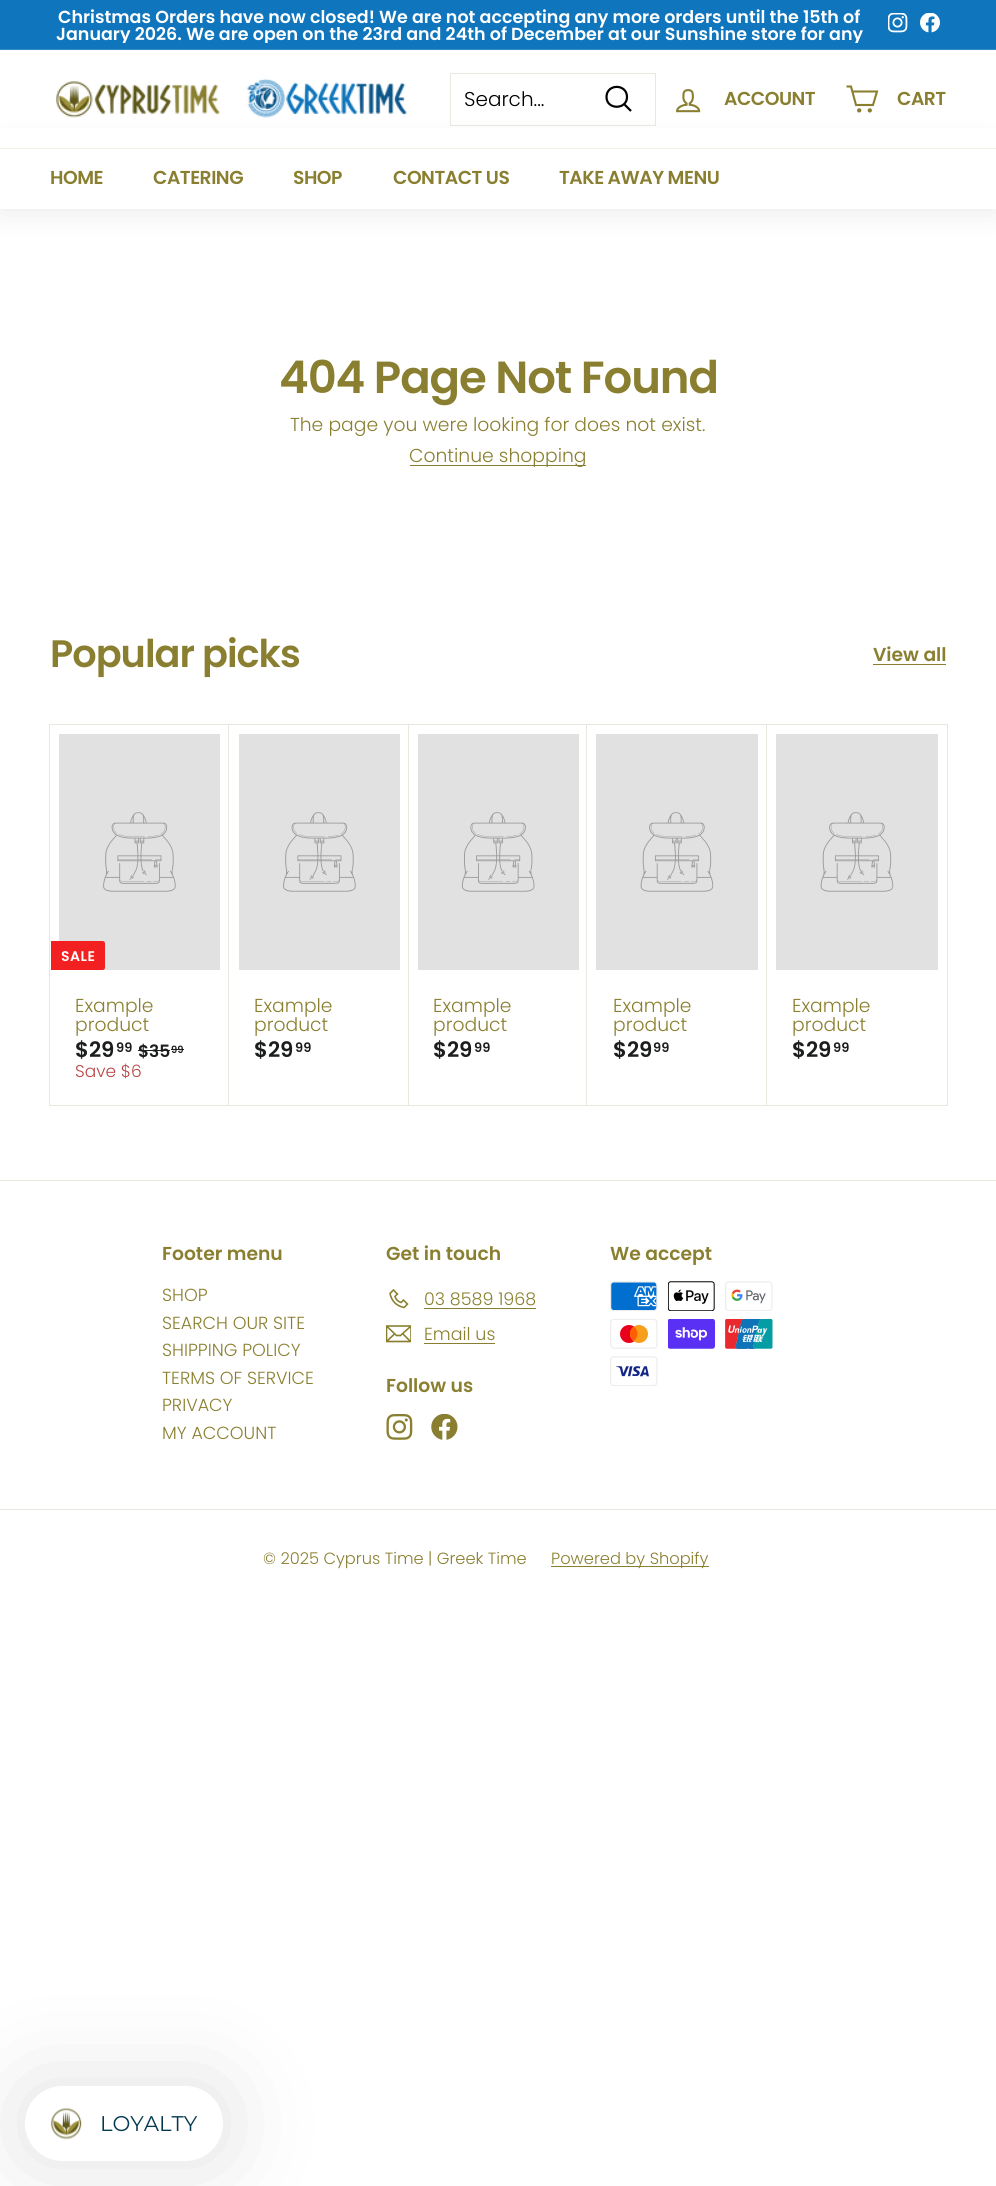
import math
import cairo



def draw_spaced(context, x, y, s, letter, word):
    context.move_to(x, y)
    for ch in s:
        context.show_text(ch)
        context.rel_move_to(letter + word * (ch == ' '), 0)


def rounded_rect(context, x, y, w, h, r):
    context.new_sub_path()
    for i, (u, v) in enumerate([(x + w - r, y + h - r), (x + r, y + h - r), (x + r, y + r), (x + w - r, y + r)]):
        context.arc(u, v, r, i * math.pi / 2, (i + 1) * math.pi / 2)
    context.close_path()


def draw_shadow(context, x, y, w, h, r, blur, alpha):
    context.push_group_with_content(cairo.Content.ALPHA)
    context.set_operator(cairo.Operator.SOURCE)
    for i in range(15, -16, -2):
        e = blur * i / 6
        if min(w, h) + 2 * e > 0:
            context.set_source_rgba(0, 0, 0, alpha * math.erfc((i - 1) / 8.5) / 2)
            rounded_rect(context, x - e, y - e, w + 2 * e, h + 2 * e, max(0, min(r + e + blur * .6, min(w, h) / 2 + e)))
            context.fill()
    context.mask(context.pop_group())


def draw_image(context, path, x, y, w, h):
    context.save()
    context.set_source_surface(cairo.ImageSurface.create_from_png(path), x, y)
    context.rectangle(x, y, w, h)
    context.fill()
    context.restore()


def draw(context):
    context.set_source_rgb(1, 1, 1)
    context.paint()
    context.set_source_rgb(15 / 255, 117 / 255, 188 / 255)
    context.rectangle(0, 0, 996, 49)
    context.fill()
    draw_image(context, "images/1.png", 888, 13, 20, 20)
    draw_image(context, "images/2.png", 920, 13, 20, 20)
    context.set_source_rgb(51 / 255, 138 / 255, 198 / 255)
    context.rectangle(0, 49, 996, 1)
    context.fill()
    context.set_source_rgb(0, 0, 0)
    draw_shadow(context, 0, 148, 996, 61, 0, 15.5, 0.1)
    context.set_source_rgb(1, 1, 1)
    context.rectangle(0, 128, 996, 20)
    context.fill()
    draw_image(context, "images/3.png", 56, 78, 351, 40)
    context.rectangle(450.5, 73.5, 205, 52)
    context.set_source_rgb(232 / 255, 232 / 255, 225 / 255)
    context.set_line_width(1)
    context.stroke()
    context.new_path()
    context.move_to(627, 97)
    context.curve_to(627, 110, 606.5, 110, 606.5, 97)
    context.curve_to(606.5, 83.5, 627, 83.5, 627, 97)
    context.close_path()
    context.move_to(631, 111)
    context.line_to(624, 104)
    context.set_source_rgb(0, 0, 0)
    context.set_line_width(2.2)
    context.stroke()
    draw_image(context, "images/4.png", 676, 89, 25, 24)
    context.new_path()
    context.move_to(852.5, 91.5)
    context.line_to(877, 91.5)
    context.line_to(873, 105)
    context.line_to(856, 105)
    context.line_to(851, 86.5)
    context.line_to(846.5, 86.5)
    context.set_source_rgb(138 / 255, 127 / 255, 48 / 255)
    context.set_line_width(2.1)
    context.stroke()
    context.arc(859.2, 110.4, 1.1, 0, 2 * math.pi)
    context.stroke()
    context.arc(869.8, 110.4, 1.1, 0, 2 * math.pi)
    context.stroke()
    context.set_source_rgb(1, 1, 1)
    context.rectangle(0, 149, 996, 60)
    context.fill()
    context.set_source_rgb(243 / 255, 242 / 255, 234 / 255)
    context.rectangle(0, 148, 996, 1)
    context.fill()
    context.set_source_rgb(138 / 255, 127 / 255, 48 / 255)
    context.rectangle(410, 465, 176, 1)
    context.fill()
    context.rectangle(873, 664, 73, 1)
    context.fill()
    context.set_source_rgb(225 / 255, 225 / 255, 225 / 255)
    context.rectangle(59, 734, 161, 236)
    context.fill()
    draw_image(context, "images/5.png", 103, 812, 73, 80)
    context.set_source_rgb(28 / 255, 29 / 255, 29 / 255)
    context.rectangle(138, 1050, 32, 1)
    context.fill()
    context.rectangle(171, 1049, 13, 1)
    context.fill()
    context.rectangle(49.5, 724.5, 180, 381)
    context.set_source_rgb(232 / 255, 232 / 255, 225 / 255)
    context.set_line_width(1)
    context.stroke()
    context.set_source_rgb(242 / 255, 32 / 255, 32 / 255)
    context.new_path()
    context.move_to(51, 941)
    context.line_to(102.5, 941)
    context.curve_to(104, 941, 105, 942, 105, 943.5)
    context.line_to(105, 967.5)
    context.curve_to(105, 969, 104, 970, 102.5, 970)
    context.line_to(51, 970)
    context.close_path()
    context.fill()
    context.set_source_rgb(1, 1, 1)
    context.rectangle(229, 725, 1, 380)
    context.fill()
    context.set_source_rgb(225 / 255, 225 / 255, 225 / 255)
    context.rectangle(239, 734, 161, 236)
    context.fill()
    draw_image(context, "images/5.png", 283, 812, 73, 80)
    context.rectangle(228.5, 724.5, 181, 381)
    context.set_source_rgb(232 / 255, 232 / 255, 225 / 255)
    context.stroke()
    context.set_source_rgb(1, 1, 1)
    context.rectangle(409, 725, 1, 380)
    context.fill()
    context.set_source_rgb(225 / 255, 225 / 255, 225 / 255)
    context.rectangle(418, 734, 161, 236)
    context.fill()
    draw_image(context, "images/6.png", 461, 812, 74, 80)
    context.rectangle(408.5, 724.5, 180, 381)
    context.set_source_rgb(232 / 255, 232 / 255, 225 / 255)
    context.stroke()
    context.set_source_rgb(1, 1, 1)
    context.rectangle(588, 725, 1, 380)
    context.fill()
    context.set_source_rgb(225 / 255, 225 / 255, 225 / 255)
    context.rectangle(596, 734, 162, 236)
    context.fill()
    draw_image(context, "images/7.png", 640, 812, 74, 80)
    context.rectangle(586.5, 724.5, 182, 381)
    context.set_source_rgb(232 / 255, 232 / 255, 225 / 255)
    context.stroke()
    context.set_source_rgb(1, 1, 1)
    context.rectangle(768, 725, 1, 380)
    context.fill()
    context.set_source_rgb(225 / 255, 225 / 255, 225 / 255)
    context.rectangle(776, 734, 162, 236)
    context.fill()
    draw_image(context, "images/7.png", 820, 812, 74, 80)
    context.rectangle(766.5, 724.5, 181, 381)
    context.set_source_rgb(232 / 255, 232 / 255, 225 / 255)
    context.stroke()
    context.rectangle(0, 1180, 996, 1)
    context.fill()
    draw_image(context, "images/8.png", 389, 1289, 20, 20)
    context.set_source_rgb(138 / 255, 127 / 255, 48 / 255)
    context.rectangle(424, 1308, 112, 1)
    context.fill()
    context.save()
    context.rectangle(386, 1321, 25, 25)
    context.clip()
    context.new_path()
    context.move_to(411, 1341.5)
    context.line_to(386.5, 1341.5)
    context.line_to(386.5, 1326)
    context.line_to(411, 1326)
    context.close_path()
    context.move_to(386.5, 1326)
    context.line_to(396.5, 1335.5)
    context.line_to(400.5, 1335.5)
    context.line_to(411, 1326)
    context.move_to(395, 1333.5)
    context.line_to(387, 1341)
    context.move_to(410.5, 1341.5)
    context.line_to(402.5, 1333.5)
    context.set_line_width(1.6)
    context.stroke()
    context.restore()
    context.rectangle(424, 1343, 71, 1)
    context.fill()
    draw_image(context, "images/9.png", 386, 1414, 27, 26)
    draw_image(context, "images/10.png", 431, 1414, 27, 26)
    draw_image(context, "images/11.png", 610, 1281, 48, 30)
    draw_image(context, "images/12.png", 668, 1281, 47, 30)
    draw_image(context, "images/13.png", 725, 1281, 48, 30)
    draw_image(context, "images/14.png", 610, 1319, 48, 30)
    draw_image(context, "images/15.png", 668, 1319, 47, 30)
    draw_image(context, "images/16.png", 725, 1319, 48, 30)
    draw_image(context, "images/17.png", 610, 1356, 48, 30)
    context.set_source_rgb(232 / 255, 232 / 255, 225 / 255)
    context.rectangle(0, 1509, 996, 1)
    context.fill()
    context.set_source_rgb(138 / 255, 127 / 255, 48 / 255)
    context.rectangle(551, 1566, 158, 1)
    context.fill()
    context.set_source_rgb(0, 0, 0)
    draw_shadow(context, 25, 2086, 198, 75, 37.5, 50, 0.12)
    context.set_source_rgb(1, 1, 1)
    rounded_rect(context, 25, 2086, 198, 75, 37.5)
    context.fill()
    draw_image(context, "images/18.png", 50, 2107, 32, 33)
    context.select_font_face("Poppins SemiBold")
    context.set_font_size(17.5)
    context.move_to(58, 23)
    context.show_text("Christmas Orders have now closed! We are not accepting any more orders until the 15th of")
    context.save()
    context.rectangle(50, 8, 819, 35)
    context.clip()
    context.move_to(56, 40)
    context.show_text("January 2026. We are open on the 23rd and 24th of December at our Sunshine store for any")
    context.restore()
    context.select_font_face("Poppins Light")
    context.set_font_size(20)
    context.set_source_rgb(0, 0, 0)
    context.move_to(464, 106)
    context.show_text("Search...")
    context.select_font_face("Poppins SemiBold")
    context.set_font_size(18.75)
    context.set_source_rgb(138 / 255, 127 / 255, 48 / 255)
    draw_spaced(context, 724, 105, "ACCOUNT", -0.5, 0)
    draw_spaced(context, 897, 105, "CART", -0.5, 0)
    draw_spaced(context, 50, 184, "HOME", -0.5, 0)
    draw_spaced(context, 153, 184, "CATERING", -0.5, 0)
    draw_spaced(context, 293, 184, "SHOP", -0.5, 0)
    draw_spaced(context, 393, 184, "CONTACT US", -0.5, 0)
    draw_spaced(context, 559, 184, "TAKE AWAY MENU", -0.5, 0)
    context.set_font_size(45)
    draw_spaced(context, 279, 393, "404 Page Not Found", -1.1, 0)
    context.select_font_face("Poppins Light")
    context.set_font_size(18.75)
    context.move_to(290, 431)
    context.show_text("The page you were looking for does not exist.")
    context.move_to(409, 462)
    context.show_text("Continue shopping")
    context.select_font_face("Poppins SemiBold")
    context.set_font_size(38.25)
    draw_spaced(context, 50, 667, "Popular picks", -1, 0)
    context.set_font_size(18.75)
    context.move_to(873, 661)
    context.show_text("View all")
    context.set_font_size(14)
    context.set_source_rgb(1, 1, 1)
    draw_spaced(context, 61, 961, "SALE", 0.5, 0)
    context.select_font_face("Poppins Light")
    context.set_font_size(18.75)
    context.set_source_rgb(138 / 255, 127 / 255, 48 / 255)
    context.move_to(75, 1012)
    context.show_text("Example")
    context.move_to(75, 1031)
    context.show_text("product")
    context.select_font_face("Poppins SemiBold")
    context.set_font_size(21.25)
    context.set_source_rgb(28 / 255, 29 / 255, 29 / 255)
    context.move_to(75, 1057)
    context.show_text("$29")
    context.set_font_size(13)
    context.move_to(116, 1052)
    context.show_text("99")
    context.set_font_size(17)
    context.move_to(138, 1057)
    context.show_text("$35")
    context.set_font_size(10)
    context.move_to(171, 1053)
    context.show_text("99")
    context.select_font_face("Poppins Light")
    context.set_font_size(17)
    context.set_source_rgb(186 / 255, 68 / 255, 68 / 255)
    context.move_to(75, 1077)
    context.show_text("Save $6")
    context.set_font_size(18.75)
    context.set_source_rgb(138 / 255, 127 / 255, 48 / 255)
    context.move_to(254, 1012)
    context.show_text("Example")
    context.move_to(254, 1031)
    context.show_text("product")
    context.select_font_face("Poppins SemiBold")
    context.set_font_size(21.25)
    context.set_source_rgb(28 / 255, 29 / 255, 29 / 255)
    context.move_to(254, 1057)
    context.show_text("$29")
    context.set_font_size(13)
    context.move_to(295, 1052)
    context.show_text("99")
    context.select_font_face("Poppins Light")
    context.set_font_size(18.75)
    context.set_source_rgb(138 / 255, 127 / 255, 48 / 255)
    context.move_to(433, 1012)
    context.show_text("Example")
    context.move_to(433, 1031)
    context.show_text("product")
    context.select_font_face("Poppins SemiBold")
    context.set_font_size(21.25)
    context.set_source_rgb(28 / 255, 29 / 255, 29 / 255)
    context.move_to(433, 1057)
    context.show_text("$29")
    context.set_font_size(13)
    context.move_to(474, 1052)
    context.show_text("99")
    context.select_font_face("Poppins Light")
    context.set_font_size(18.75)
    context.set_source_rgb(138 / 255, 127 / 255, 48 / 255)
    context.move_to(613, 1012)
    context.show_text("Example")
    context.move_to(613, 1031)
    context.show_text("product")
    context.select_font_face("Poppins SemiBold")
    context.set_font_size(21.25)
    context.set_source_rgb(28 / 255, 29 / 255, 29 / 255)
    context.move_to(613, 1057)
    context.show_text("$29")
    context.set_font_size(13)
    context.move_to(653, 1052)
    context.show_text("99")
    context.select_font_face("Poppins Light")
    context.set_font_size(18.75)
    context.set_source_rgb(138 / 255, 127 / 255, 48 / 255)
    context.move_to(792, 1012)
    context.show_text("Example")
    context.move_to(792, 1031)
    context.show_text("product")
    context.select_font_face("Poppins SemiBold")
    context.set_font_size(21.25)
    context.set_source_rgb(28 / 255, 29 / 255, 29 / 255)
    context.move_to(792, 1057)
    context.show_text("$29")
    context.set_font_size(13)
    context.move_to(833, 1052)
    context.show_text("99")
    context.set_font_size(18.75)
    context.set_source_rgb(138 / 255, 127 / 255, 48 / 255)
    context.move_to(162, 1260)
    context.show_text("Footer menu")
    context.select_font_face("Poppins Light")
    context.set_font_size(17.5)
    context.move_to(162, 1301)
    context.show_text("SHOP")
    context.move_to(162, 1329)
    context.show_text("SEARCH OUR SITE")
    context.move_to(162, 1356)
    context.show_text("SHIPPING POLICY")
    context.move_to(162, 1384)
    context.show_text("TERMS OF SERVICE")
    context.move_to(162, 1411)
    context.show_text("PRIVACY")
    context.move_to(162, 1439)
    context.show_text("MY ACCOUNT")
    context.select_font_face("Poppins SemiBold")
    context.set_font_size(18.75)
    context.move_to(386, 1260)
    context.show_text("Get in touch")
    context.select_font_face("Poppins Light")
    context.set_font_size(17.5)
    context.move_to(424, 1305)
    context.show_text("03 8589 1968")
    context.move_to(424, 1340)
    context.show_text("Email us")
    context.select_font_face("Poppins SemiBold")
    context.set_font_size(18.75)
    context.move_to(386, 1392)
    context.show_text("Follow us")
    context.move_to(610, 1260)
    context.show_text("We accept")
    context.select_font_face("Poppins Light")
    context.set_font_size(16.25)
    context.move_to(263, 1564)
    context.show_text("© 2025 Cyprus Time | Greek Time")
    context.move_to(551, 1564)
    context.show_text("Powered by Shopify")
    context.select_font_face("Montserrat")
    context.set_font_size(21.25)
    context.set_source_rgb(3 / 255, 57 / 255, 80 / 255)
    context.move_to(100, 2131)
    context.show_text("LOYALTY")


surface = cairo.ImageSurface(cairo.Format.RGB24, 996, 2186)
context = cairo.Context(surface)
options = cairo.FontOptions()
options.set_hint_metrics(cairo.HintMetrics.OFF)
options.set_hint_style(cairo.HintStyle.NONE)
context.set_font_options(options)
context.set_miter_limit(4)
draw(context)
surface.write_to_png("out.png")
